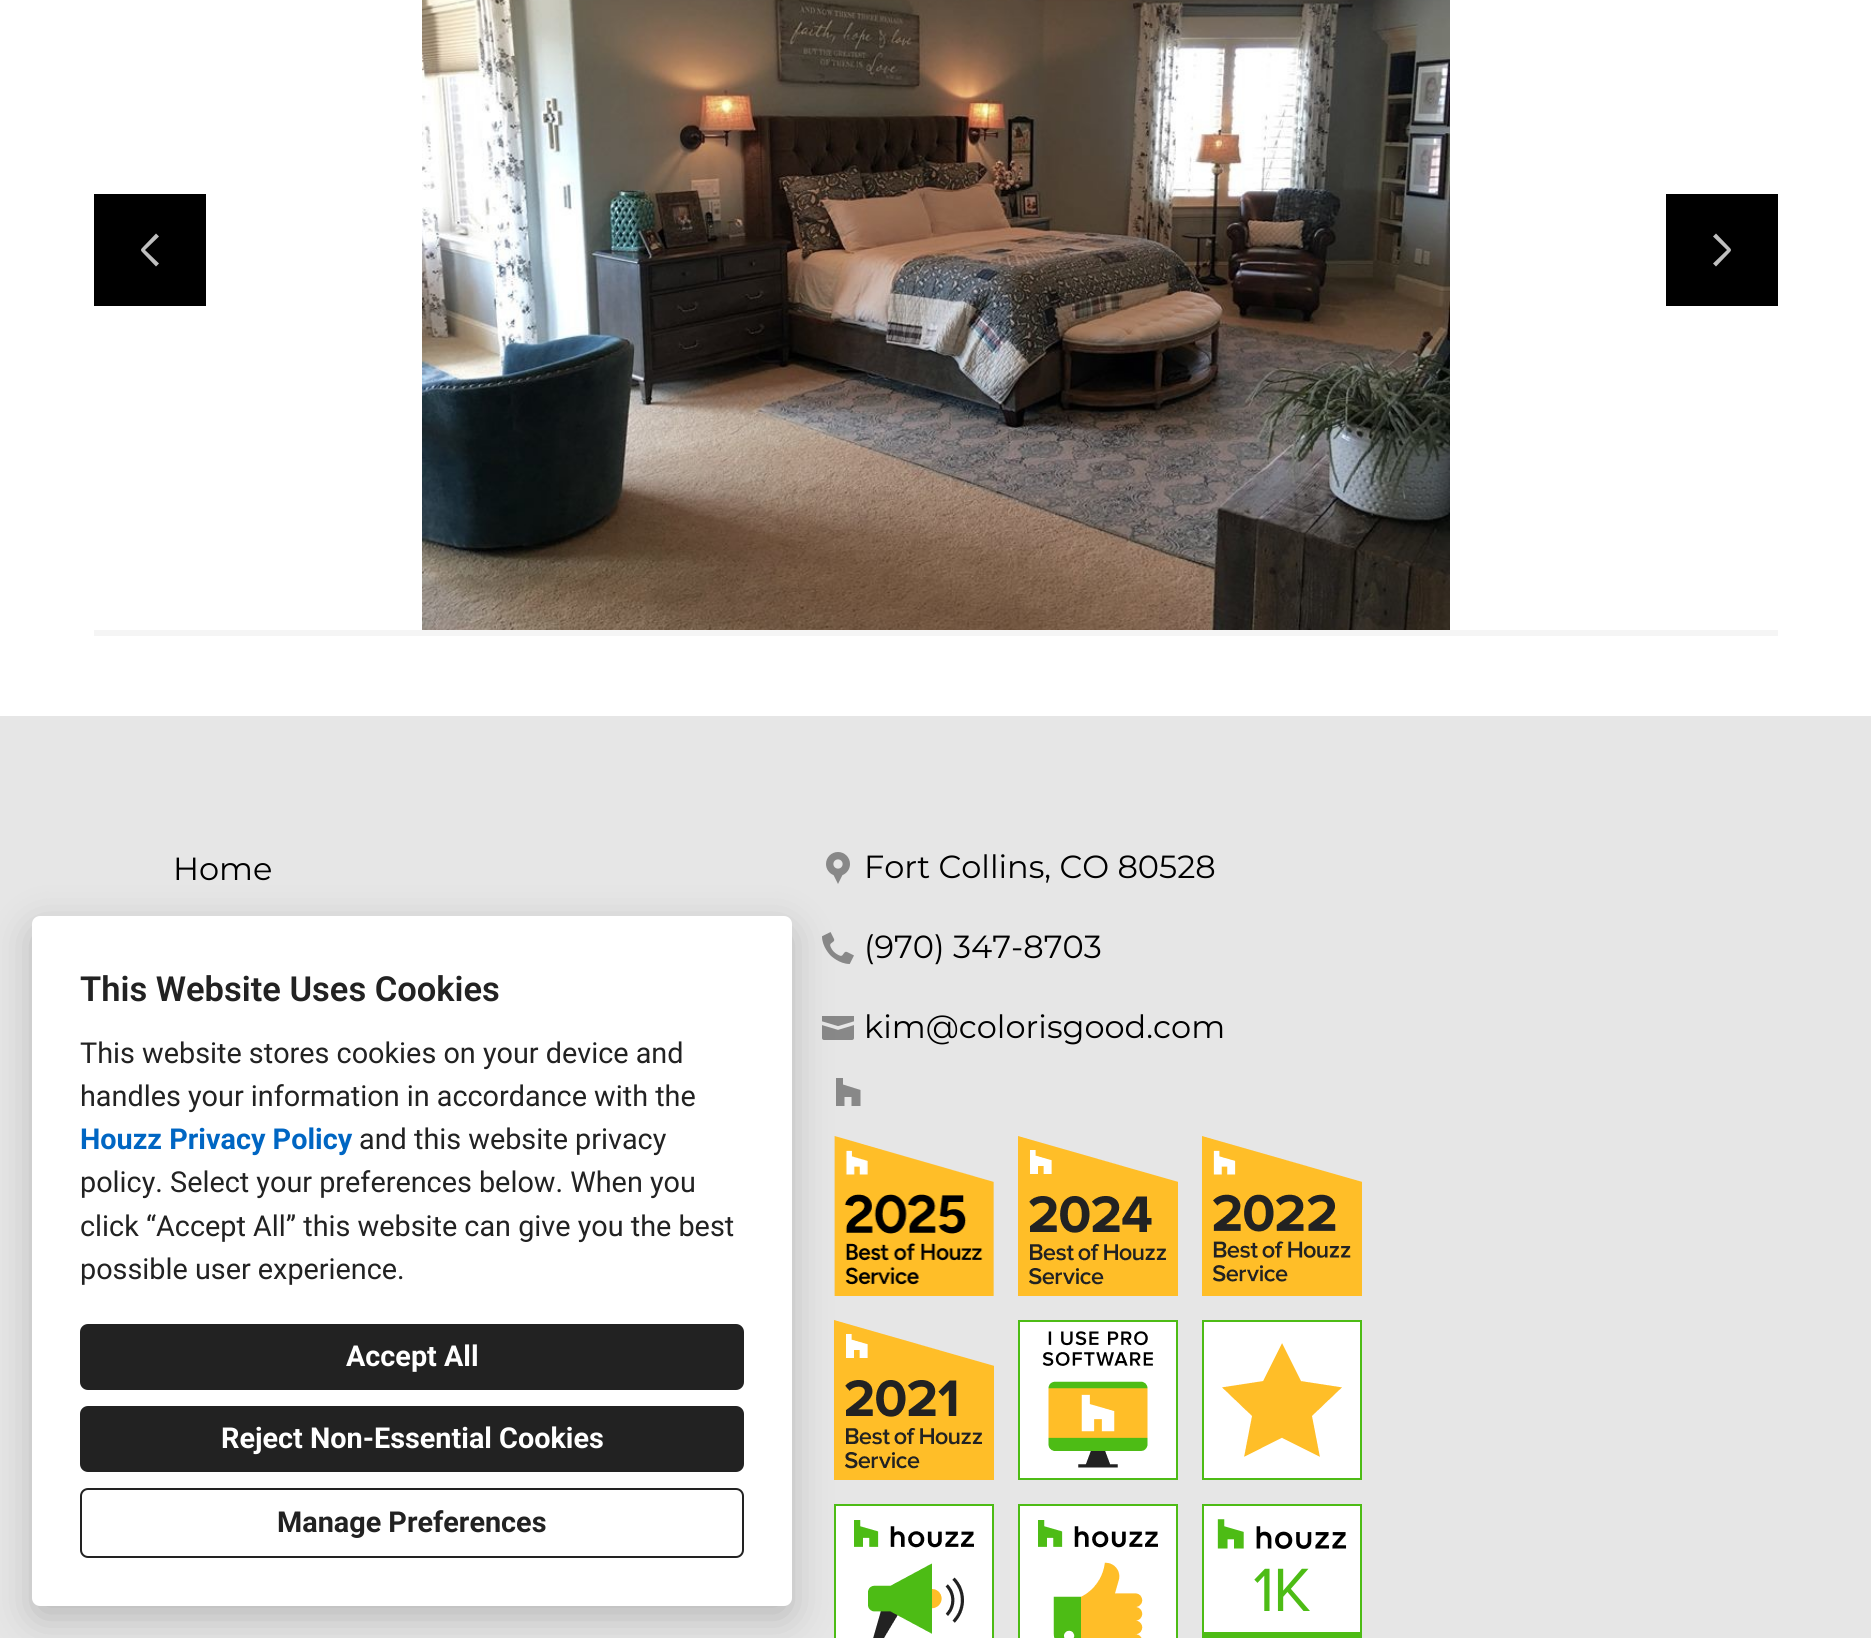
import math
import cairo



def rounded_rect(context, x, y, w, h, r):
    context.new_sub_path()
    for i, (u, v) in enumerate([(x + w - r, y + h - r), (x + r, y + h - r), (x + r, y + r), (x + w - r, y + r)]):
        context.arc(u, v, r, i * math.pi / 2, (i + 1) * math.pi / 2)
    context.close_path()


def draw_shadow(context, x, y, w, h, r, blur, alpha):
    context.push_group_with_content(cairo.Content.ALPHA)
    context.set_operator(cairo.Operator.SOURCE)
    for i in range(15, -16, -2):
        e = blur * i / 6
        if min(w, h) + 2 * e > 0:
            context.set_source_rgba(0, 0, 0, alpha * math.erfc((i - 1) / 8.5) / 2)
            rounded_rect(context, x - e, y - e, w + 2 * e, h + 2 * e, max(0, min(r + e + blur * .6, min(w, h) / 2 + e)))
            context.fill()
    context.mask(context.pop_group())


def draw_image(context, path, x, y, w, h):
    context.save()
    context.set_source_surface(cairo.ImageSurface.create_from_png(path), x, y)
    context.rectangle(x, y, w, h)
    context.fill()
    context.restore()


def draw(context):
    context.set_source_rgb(1, 1, 1)
    context.paint()
    context.set_source_rgb(0, 0, 0)
    context.rectangle(94, 194, 112, 112)
    context.fill()
    context.set_source_rgb(191 / 255, 191 / 255, 191 / 255)
    context.new_path()
    context.move_to(156, 266.5)
    context.line_to(144, 254)
    context.curve_to(140, 250, 140, 250, 144, 246)
    context.line_to(156, 233.5)
    context.line_to(159, 236.5)
    context.line_to(145, 250)
    context.line_to(159, 263.5)
    context.close_path()
    context.fill()
    draw_image(context, "images/1.png", 422, 0, 1028, 630)
    context.set_source_rgb(0, 0, 0)
    context.rectangle(1666, 194, 112, 112)
    context.fill()
    context.set_source_rgb(191 / 255, 191 / 255, 191 / 255)
    context.new_path()
    context.move_to(1716, 266.5)
    context.line_to(1728, 254)
    context.curve_to(1732, 250, 1732, 250, 1728, 246)
    context.line_to(1716, 233.5)
    context.line_to(1713, 236.5)
    context.line_to(1727, 250)
    context.line_to(1713, 263.5)
    context.close_path()
    context.fill()
    context.set_source_rgb(245 / 255, 245 / 255, 245 / 255)
    context.rectangle(94, 630, 1684, 6)
    context.fill()
    context.set_source_rgb(230 / 255, 230 / 255, 230 / 255)
    context.rectangle(0, 716, 1871, 922)
    context.fill()
    draw_image(context, "images/2.png", 826, 852, 24, 32)
    draw_image(context, "images/3.png", 822, 932, 32, 32)
    draw_image(context, "images/4.png", 822, 1016, 32, 24)
    context.set_source_rgb(136 / 255, 136 / 255, 136 / 255)
    context.new_path()
    context.move_to(851.5, 1097)
    context.line_to(844.5, 1097)
    context.line_to(844.5, 1106)
    context.line_to(836, 1106)
    context.line_to(836, 1078)
    context.line_to(843, 1078)
    context.line_to(843, 1084.5)
    context.line_to(860.5, 1090)
    context.line_to(860.5, 1106)
    context.line_to(851.5, 1106)
    context.close_path()
    context.fill()
    draw_image(context, "images/5.png", 834, 1136, 160, 160)
    draw_image(context, "images/6.png", 1018, 1136, 160, 160)
    draw_image(context, "images/7.png", 1202, 1136, 160, 160)
    draw_image(context, "images/8.png", 834, 1320, 160, 160)
    draw_image(context, "images/9.png", 1018, 1320, 160, 160)
    draw_image(context, "images/10.png", 1202, 1320, 160, 160)
    draw_image(context, "images/11.png", 834, 1504, 160, 134)
    draw_image(context, "images/12.png", 1018, 1504, 160, 134)
    draw_image(context, "images/13.png", 1202, 1504, 160, 134)
    context.set_source_rgb(0, 0, 0)
    draw_shadow(context, 32, 928, 760, 690, 8, 20, 0.2)
    context.set_source_rgb(1, 1, 1)
    rounded_rect(context, 32, 916, 760, 690, 8)
    context.fill()
    context.set_source_rgb(34 / 255, 34 / 255, 34 / 255)
    rounded_rect(context, 80, 1324, 664, 66, 8)
    context.fill()
    rounded_rect(context, 80, 1406, 664, 66, 8)
    context.fill()
    rounded_rect(context, 81, 1489, 662, 68, 7)
    context.stroke()
    context.select_font_face("Montserrat")
    context.set_font_size(32)
    context.set_source_rgb(0, 0, 0)
    context.move_to(173, 880)
    context.show_text("Home")
    context.move_to(864, 878)
    context.show_text("Fort Collins, CO 80528")
    context.move_to(864, 958)
    context.show_text("(970) 347-8703")
    context.move_to(864, 1038)
    context.show_text("kim@colorisgood.com")
    context.select_font_face("Roboto SemiBold")
    context.set_font_size(34.5)
    context.set_source_rgb(34 / 255, 34 / 255, 34 / 255)
    context.move_to(80, 1001)
    context.show_text("This Website Uses Cookies")
    context.select_font_face("Roboto")
    context.set_font_size(28.8)
    context.move_to(80, 1063)
    context.show_text("This website stores cookies on your device and")
    context.move_to(80, 1106)
    context.show_text("handles your information in accordance with the")
    context.select_font_face("Roboto", cairo.FontSlant.NORMAL, cairo.FontWeight.BOLD)
    context.set_source_rgb(0, 102 / 255, 195 / 255)
    context.move_to(80, 1149)
    context.show_text("Houzz Privacy Policy")
    context.select_font_face("Roboto")
    context.set_source_rgb(34 / 255, 34 / 255, 34 / 255)
    context.move_to(359, 1149)
    context.show_text("and this website privacy")
    context.move_to(80, 1192)
    context.show_text("policy. Select your preferences below. When you")
    context.move_to(80, 1236)
    context.show_text("click “Accept All” this website can give you the best")
    context.move_to(80, 1279)
    context.show_text("possible user experience.")
    context.select_font_face("Roboto", cairo.FontSlant.NORMAL, cairo.FontWeight.BOLD)
    context.set_source_rgb(1, 1, 1)
    context.move_to(346, 1366)
    context.show_text("Accept All")
    context.move_to(221, 1448)
    context.show_text("Reject Non-Essential Cookies")
    context.set_source_rgb(34 / 255, 34 / 255, 34 / 255)
    context.move_to(277, 1532)
    context.show_text("Manage Preferences")


surface = cairo.ImageSurface(cairo.Format.RGB24, 1871, 1638)
context = cairo.Context(surface)
options = cairo.FontOptions()
options.set_hint_metrics(cairo.HintMetrics.OFF)
options.set_hint_style(cairo.HintStyle.NONE)
context.set_font_options(options)
context.set_miter_limit(4)
draw(context)
surface.write_to_png("out.png")
